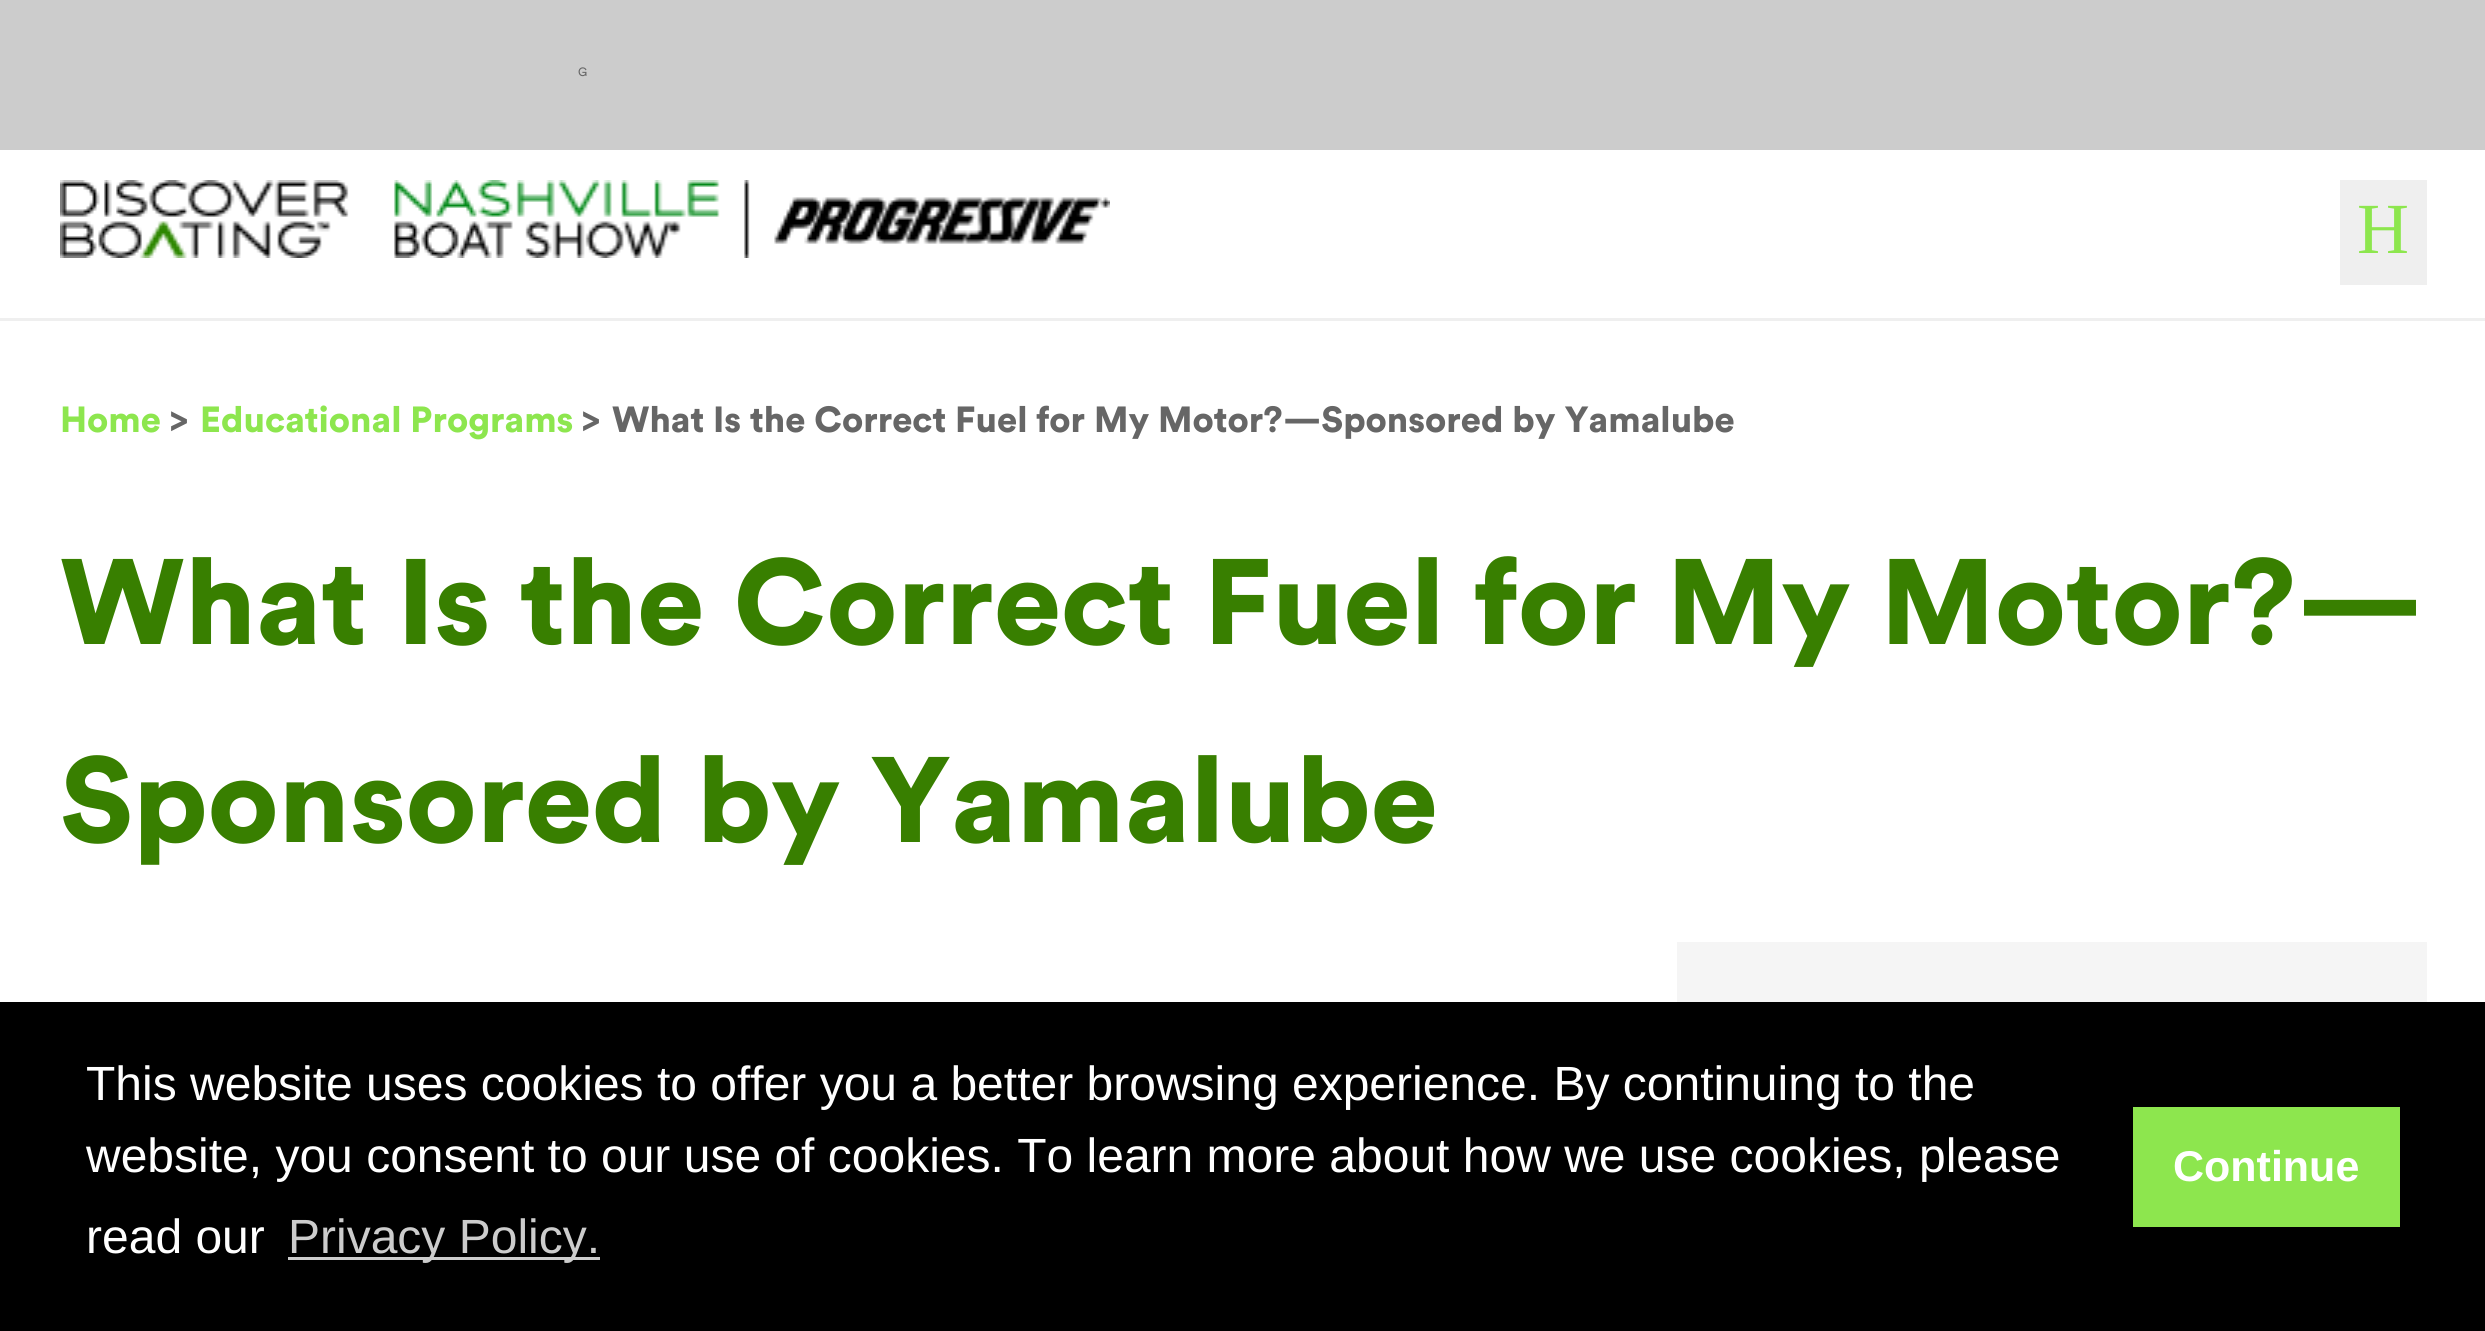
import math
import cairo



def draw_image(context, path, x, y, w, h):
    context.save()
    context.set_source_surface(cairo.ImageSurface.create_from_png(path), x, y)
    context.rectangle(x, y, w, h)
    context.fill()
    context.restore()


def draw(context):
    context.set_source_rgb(1, 1, 1)
    context.paint()
    context.set_source_rgb(204 / 255, 204 / 255, 204 / 255)
    context.rectangle(0, 0, 2485, 150)
    context.fill()
    context.set_source_rgb(239 / 255, 239 / 255, 239 / 255)
    context.rectangle(0, 318, 2485, 3)
    context.fill()
    draw_image(context, "images/1.png", 60, 180, 1050, 78)
    context.rectangle(2340, 180, 87, 105)
    context.fill()
    context.set_source_rgb(245 / 255, 245 / 255, 245 / 255)
    context.rectangle(1677, 942, 750, 60)
    context.fill()
    context.set_source_rgb(0, 0, 0)
    context.rectangle(0, 1002, 2485, 329)
    context.fill()
    context.set_source_rgb(204 / 255, 204 / 255, 204 / 255)
    context.rectangle(288, 1257, 312, 3)
    context.fill()
    context.set_source_rgb(141 / 255, 230 / 255, 78 / 255)
    context.rectangle(2133, 1107, 267, 120)
    context.fill()
    context.select_font_face("Circular")
    context.set_font_size(12)
    context.set_source_rgb(102 / 255, 102 / 255, 102 / 255)
    context.move_to(578, 76)
    context.show_text("G")
    context.select_font_face("Liberation Serif")
    context.set_font_size(72)
    context.set_source_rgb(141 / 255, 230 / 255, 78 / 255)
    context.move_to(2357, 253)
    context.show_text("H")
    context.select_font_face("Circular Black")
    context.set_font_size(36)
    context.move_to(60, 432)
    context.show_text("Home")
    context.set_source_rgb(102 / 255, 102 / 255, 102 / 255)
    context.move_to(170, 432)
    context.show_text(">")
    context.set_source_rgb(141 / 255, 230 / 255, 78 / 255)
    context.move_to(200, 432)
    context.show_text("Educational Programs")
    context.set_source_rgb(102 / 255, 102 / 255, 102 / 255)
    context.move_to(582, 432)
    context.show_text(">")
    context.move_to(612, 432)
    context.show_text("What Is the Correct Fuel for My Motor?—Sponsored by Yamalube")
    context.set_font_size(120)
    context.set_source_rgb(56 / 255, 127 / 255, 0)
    context.move_to(60, 644)
    context.show_text("What Is the Correct Fuel for My Motor?—")
    context.move_to(60, 842)
    context.show_text("Sponsored by Yamalube")
    context.select_font_face("Liberation Sans")
    context.set_font_size(48)
    context.set_source_rgb(1, 1, 1)
    context.move_to(86, 1100)
    context.show_text("This website uses cookies to offer you a better browsing experience. By continuing to the")
    context.move_to(86, 1172)
    context.show_text("website, you consent to our use of cookies. To learn more about how we use cookies, please")
    context.move_to(86, 1253)
    context.show_text("read our")
    context.set_source_rgb(204 / 255, 204 / 255, 204 / 255)
    context.move_to(288, 1253)
    context.show_text("Privacy Policy.")
    context.select_font_face("Liberation Sans", cairo.FontSlant.NORMAL, cairo.FontWeight.BOLD)
    context.set_font_size(43)
    context.set_source_rgb(1, 1, 1)
    context.move_to(2173, 1181)
    context.show_text("Continue")


surface = cairo.ImageSurface(cairo.Format.RGB24, 2485, 1331)
context = cairo.Context(surface)
options = cairo.FontOptions()
options.set_hint_metrics(cairo.HintMetrics.OFF)
options.set_hint_style(cairo.HintStyle.NONE)
context.set_font_options(options)
context.set_miter_limit(4)
draw(context)
surface.write_to_png("out.png")
